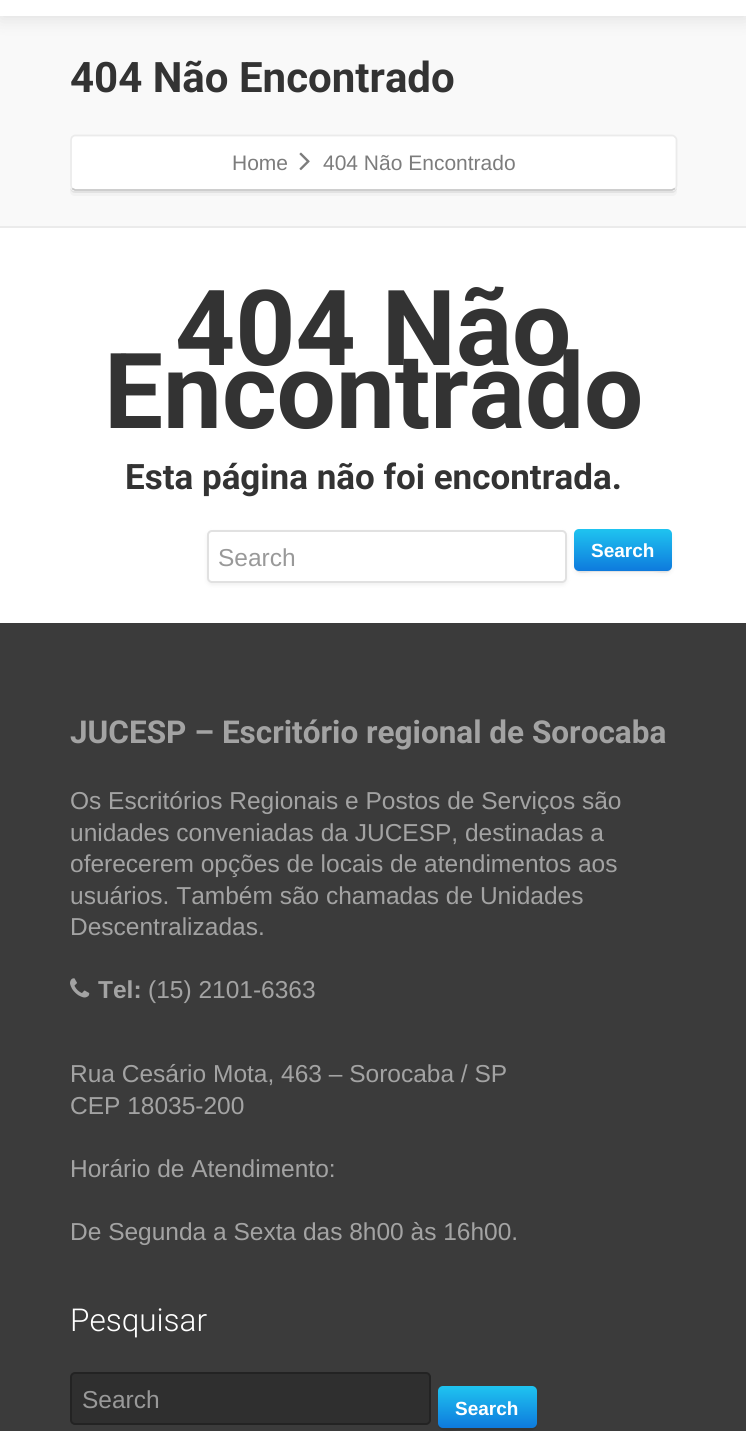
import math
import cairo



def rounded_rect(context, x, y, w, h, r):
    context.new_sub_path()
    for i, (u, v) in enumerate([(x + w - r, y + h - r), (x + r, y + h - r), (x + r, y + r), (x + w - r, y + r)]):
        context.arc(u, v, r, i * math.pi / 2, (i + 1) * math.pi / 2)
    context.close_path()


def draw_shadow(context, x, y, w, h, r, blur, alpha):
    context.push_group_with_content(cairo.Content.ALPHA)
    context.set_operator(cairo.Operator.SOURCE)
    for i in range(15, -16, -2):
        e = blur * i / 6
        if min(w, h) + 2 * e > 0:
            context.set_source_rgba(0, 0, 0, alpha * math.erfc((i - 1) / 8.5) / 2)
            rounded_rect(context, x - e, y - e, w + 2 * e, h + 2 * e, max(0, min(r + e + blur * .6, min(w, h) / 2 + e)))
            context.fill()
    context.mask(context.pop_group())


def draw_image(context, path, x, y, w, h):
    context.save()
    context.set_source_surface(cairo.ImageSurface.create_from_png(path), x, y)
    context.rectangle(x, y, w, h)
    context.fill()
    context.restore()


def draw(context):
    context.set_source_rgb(1, 1, 1)
    context.paint()
    context.set_source_rgb(249 / 255, 249 / 255, 249 / 255)
    context.rectangle(0, 16, 746, 210)
    context.fill()
    context.set_source_rgb(0, 0, 0)
    draw_shadow(context, 0, -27, 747, 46, 0, 9, 0.1)
    context.set_source_rgb(1, 1, 1)
    context.rectangle(0, 0, 746, 16)
    context.fill()
    context.set_source_rgb(235 / 255, 235 / 255, 235 / 255)
    context.rectangle(0, 226, 746, 2)
    context.fill()
    context.set_source_rgb(232 / 255, 232 / 255, 232 / 255)
    context.new_path()
    context.move_to(70, 186)
    context.curve_to(70, 189, 71, 193, 75, 193)
    context.line_to(672, 193)
    context.curve_to(675, 193, 677, 190, 677, 187)
    context.curve_to(676, 189, 674, 191, 672, 191)
    context.line_to(75, 191)
    context.curve_to(72, 191, 70, 188, 70, 186)
    context.close_path()
    context.fill()
    context.set_source_rgba(0, 0, 0, 0.03)
    context.new_path()
    context.move_to(70, 186)
    context.line_to(70, 191)
    context.curve_to(70, 194, 72, 196, 75, 196)
    context.line_to(672, 196)
    context.curve_to(675, 196, 677, 194, 677, 191)
    context.line_to(677, 187)
    context.curve_to(676, 189, 674, 191, 672, 191)
    context.line_to(75, 191)
    context.curve_to(72, 191, 70, 188, 70, 186)
    context.close_path()
    context.fill()
    context.set_source_rgb(1, 1, 1)
    rounded_rect(context, 70, 135, 607, 56, 5)
    context.fill()
    context.new_path()
    context.move_to(675, 188.5)
    context.line_to(672, 190)
    context.line_to(75, 190)
    context.line_to(72, 188.5)
    context.set_source_rgb(199 / 255, 199 / 255, 199 / 255)
    context.set_line_width(1.8)
    context.stroke()
    context.new_path()
    context.move_to(72, 188.5)
    context.curve_to(71.5, 188, 71, 186.5, 71, 185.5)
    context.line_to(71, 140)
    context.curve_to(71, 139, 71.5, 137.5, 72, 137)
    context.curve_to(73, 136, 74, 135.5, 75, 135.5)
    context.line_to(672, 135.5)
    context.curve_to(673, 135.5, 674.5, 136, 675, 137)
    context.curve_to(676, 137.5, 676.5, 139, 676.5, 140)
    context.line_to(676.5, 185.5)
    context.curve_to(676.5, 186.5, 676, 188, 675, 188.5)
    context.set_source_rgb(235 / 255, 235 / 255, 235 / 255)
    context.stroke()
    draw_image(context, "images/1.png", 299, 152, 11, 19)
    context.set_source_rgb(180 / 255, 180 / 255, 180 / 255)
    draw_shadow(context, 207, 532, 360, 53, 5, 2, 0.2)
    context.set_source_rgb(1, 1, 1)
    rounded_rect(context, 208, 531, 358, 51, 4)
    context.fill_preserve()
    context.set_source_rgb(225 / 255, 225 / 255, 225 / 255)
    context.set_line_width(2)
    context.stroke()
    context.set_source_rgb(235 / 255, 235 / 255, 235 / 255)
    context.new_path()
    context.move_to(574, 565)
    context.curve_to(574, 576, 586, 572, 594, 572)
    context.line_to(652, 572)
    context.curve_to(660, 572, 672, 576, 672, 565)
    context.curve_to(672, 568, 670, 570, 667, 570)
    context.line_to(579, 570)
    context.curve_to(576, 570, 574, 568, 574, 565)
    context.close_path()
    context.fill()
    context.set_source_rgb(0, 0, 0)
    draw_shadow(context, 574, 532, 98, 42, 5, 2, 0.05)
    gradient = cairo.LinearGradient(623, 529, 623, 571)
    gradient.add_color_stop_rgba(0, 31 / 255, 196 / 255, 240 / 255, 1)
    gradient.add_color_stop_rgba(1, 14 / 255, 122 / 255, 221 / 255, 1)
    context.set_source(gradient)
    rounded_rect(context, 574, 529, 98, 42, 5)
    context.fill()
    context.set_source_rgb(59 / 255, 59 / 255, 59 / 255)
    context.rectangle(0, 623, 746, 808)
    context.fill()
    draw_image(context, "images/2.png", 70, 978, 20, 20)
    context.set_source_rgb(47 / 255, 47 / 255, 47 / 255)
    rounded_rect(context, 71, 1373, 359, 51, 4)
    context.fill_preserve()
    context.set_source_rgb(35 / 255, 35 / 255, 35 / 255)
    context.stroke()
    context.set_source_rgb(54 / 255, 54 / 255, 54 / 255)
    context.new_path()
    context.move_to(438, 1425)
    context.curve_to(438, 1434, 456, 1430, 458, 1430)
    context.line_to(517, 1430)
    context.curve_to(521, 1430, 537, 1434, 537, 1424)
    context.curve_to(536, 1426, 534, 1428, 532, 1428)
    context.line_to(443, 1428)
    context.curve_to(441, 1428, 439, 1427, 438, 1425)
    context.close_path()
    context.fill()
    gradient = cairo.LinearGradient(487, 1386, 487, 1428)
    gradient.add_color_stop_rgba(0, 31 / 255, 196 / 255, 240 / 255, 1)
    gradient.add_color_stop_rgba(1, 14 / 255, 122 / 255, 221 / 255, 1)
    context.set_source(gradient)
    rounded_rect(context, 438, 1386, 99, 42, 5)
    context.fill()
    context.select_font_face("Roboto", cairo.FontSlant.NORMAL, cairo.FontWeight.BOLD)
    context.set_font_size(42)
    context.set_source_rgb(51 / 255, 51 / 255, 51 / 255)
    context.move_to(70, 92)
    context.show_text("404 Não Encontrado")
    context.select_font_face("Liberation Sans")
    context.set_font_size(21)
    context.set_source_rgb(124 / 255, 124 / 255, 124 / 255)
    context.move_to(232, 170)
    context.show_text("Home")
    context.move_to(323, 170)
    context.show_text("404 Não Encontrado")
    context.select_font_face("Roboto", cairo.FontSlant.NORMAL, cairo.FontWeight.BOLD)
    context.set_font_size(105)
    context.set_source_rgb(51 / 255, 51 / 255, 51 / 255)
    context.move_to(175, 365)
    context.show_text("404 Não")
    context.move_to(104, 428)
    context.show_text("Encontrado")
    context.set_font_size(35)
    context.move_to(125, 489)
    context.show_text("Esta página não foi encontrada.")
    context.select_font_face("Liberation Sans")
    context.set_font_size(24.5)
    context.set_source_rgb(153 / 255, 153 / 255, 153 / 255)
    context.move_to(218, 566)
    context.show_text("Search")
    context.select_font_face("Liberation Sans", cairo.FontSlant.NORMAL, cairo.FontWeight.BOLD)
    context.set_font_size(19)
    context.set_source_rgb(1, 1, 1)
    context.move_to(591, 557)
    context.show_text("Search")
    context.select_font_face("Roboto", cairo.FontSlant.NORMAL, cairo.FontWeight.BOLD)
    context.set_font_size(31.5)
    context.set_source_rgb(163 / 255, 163 / 255, 163 / 255)
    context.move_to(70, 743)
    context.show_text("JUCESP – Escritório regional de Sorocaba")
    context.select_font_face("Liberation Sans")
    context.set_font_size(24.5)
    context.move_to(70, 809)
    context.show_text("Os Escritórios Regionais e Postos de Serviços são")
    context.move_to(70, 841)
    context.show_text("unidades conveniadas da JUCESP, destinadas a")
    context.move_to(70, 872)
    context.show_text("oferecerem opções de locais de atendimentos aos")
    context.move_to(70, 904)
    context.show_text("usuários. Também são chamadas de Unidades")
    context.move_to(70, 935)
    context.show_text("Descentralizadas.")
    context.select_font_face("Liberation Sans", cairo.FontSlant.NORMAL, cairo.FontWeight.BOLD)
    context.move_to(98, 998)
    context.show_text("Tel:")
    context.select_font_face("Liberation Sans")
    context.move_to(148, 998)
    context.show_text("(15) 2101-6363")
    context.move_to(70, 1082)
    context.show_text("Rua Cesário Mota, 463 – Sorocaba / SP")
    context.move_to(70, 1114)
    context.show_text("CEP 18035-200")
    context.move_to(70, 1177)
    context.show_text("Horário de Atendimento:")
    context.move_to(70, 1240)
    context.show_text("De Segunda a Sexta das 8h00 às 16h00.")
    context.select_font_face("Roboto Light")
    context.set_font_size(31.5)
    context.set_source_rgb(1, 1, 1)
    context.move_to(70, 1331)
    context.show_text("Pesquisar")
    context.select_font_face("Liberation Sans")
    context.set_font_size(24.5)
    context.set_source_rgb(153 / 255, 153 / 255, 153 / 255)
    context.move_to(82, 1408)
    context.show_text("Search")
    context.select_font_face("Liberation Sans", cairo.FontSlant.NORMAL, cairo.FontWeight.BOLD)
    context.set_font_size(19)
    context.set_source_rgb(1, 1, 1)
    context.move_to(455, 1415)
    context.show_text("Search")


surface = cairo.ImageSurface(cairo.Format.RGB24, 746, 1431)
context = cairo.Context(surface)
options = cairo.FontOptions()
options.set_hint_metrics(cairo.HintMetrics.OFF)
options.set_hint_style(cairo.HintStyle.NONE)
context.set_font_options(options)
context.set_miter_limit(4)
draw(context)
surface.write_to_png("out.png")
